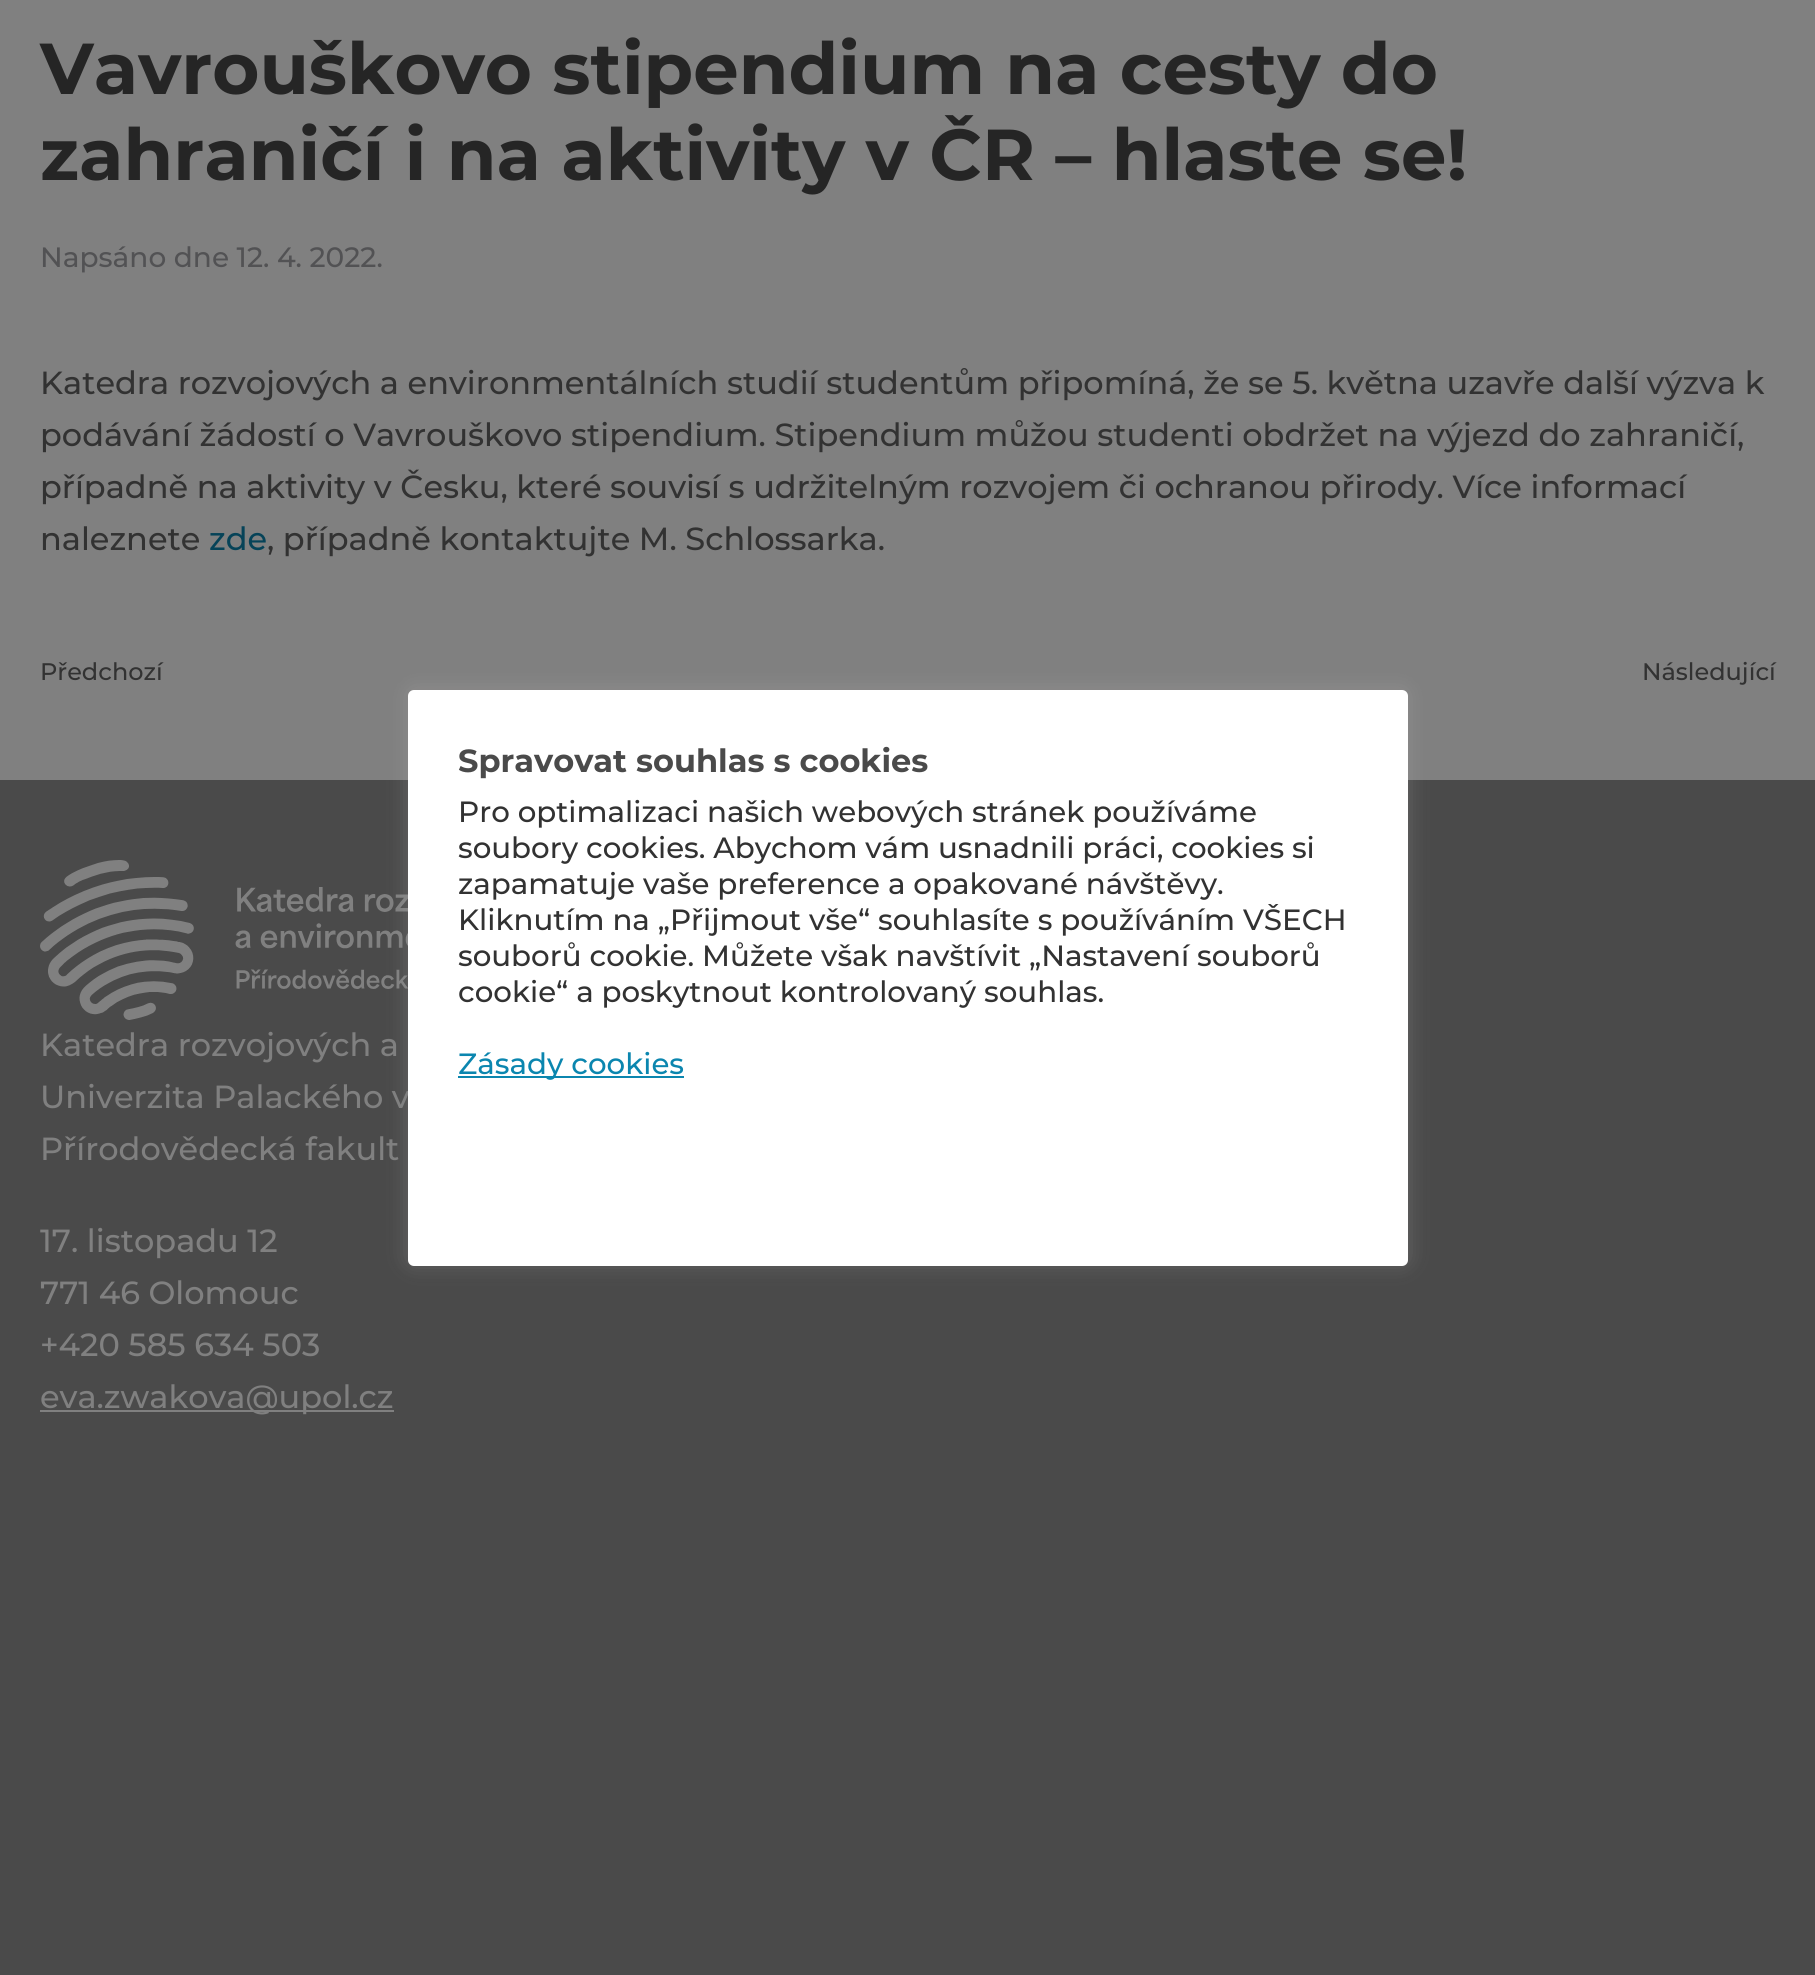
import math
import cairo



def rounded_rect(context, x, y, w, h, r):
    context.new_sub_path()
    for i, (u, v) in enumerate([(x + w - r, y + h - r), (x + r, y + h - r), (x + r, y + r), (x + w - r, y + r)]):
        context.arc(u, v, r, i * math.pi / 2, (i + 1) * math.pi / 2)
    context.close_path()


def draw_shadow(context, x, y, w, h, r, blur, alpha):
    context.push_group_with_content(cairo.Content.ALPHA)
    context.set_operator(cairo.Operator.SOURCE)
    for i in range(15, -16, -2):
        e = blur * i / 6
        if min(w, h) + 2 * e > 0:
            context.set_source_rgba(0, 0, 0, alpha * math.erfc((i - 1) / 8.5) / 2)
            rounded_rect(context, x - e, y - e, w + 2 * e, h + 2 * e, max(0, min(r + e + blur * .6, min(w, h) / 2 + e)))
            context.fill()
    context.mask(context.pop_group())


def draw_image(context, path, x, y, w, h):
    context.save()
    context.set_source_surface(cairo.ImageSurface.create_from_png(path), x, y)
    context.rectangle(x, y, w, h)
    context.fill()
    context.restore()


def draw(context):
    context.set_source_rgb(128 / 255, 128 / 255, 128 / 255)
    context.paint()
    context.set_source_rgb(74 / 255, 74 / 255, 74 / 255)
    context.rectangle(0, 780, 1815, 1195)
    context.fill()
    draw_image(context, "images/1.png", 40, 860, 368, 160)
    context.set_source_rgb(128 / 255, 128 / 255, 128 / 255)
    context.rectangle(40, 1410, 354, 2)
    context.fill()
    context.set_source_rgb(172 / 255, 171 / 255, 171 / 255)
    draw_shadow(context, 408, 688, 1000, 576, 6, 10, 0.3)
    context.select_font_face("Montserrat", cairo.FontSlant.NORMAL, cairo.FontWeight.BOLD)
    context.set_font_size(72)
    context.set_source_rgb(37 / 255, 37 / 255, 37 / 255)
    context.move_to(40, 94)
    context.show_text("Vavrouškovo stipendium na cesty do")
    context.move_to(40, 180)
    context.show_text("zahraničí i na aktivity v ČR – hlaste se!")
    context.select_font_face("Montserrat Medium")
    context.set_font_size(28)
    context.set_source_rgb(82 / 255, 82 / 255, 84 / 255)
    context.move_to(40, 267)
    context.show_text("Napsáno dne 12. 4. 2022.")
    context.set_font_size(32)
    context.set_source_rgb(50 / 255, 50 / 255, 50 / 255)
    context.move_to(40, 394)
    context.show_text("Katedra rozvojových a environmentálních studií studentům připomíná, že se 5. května uzavře další výzva k")
    context.move_to(40, 446)
    context.show_text("podávání žádostí o Vavrouškovo stipendium. Stipendium můžou studenti obdržet na výjezd do zahraničí,")
    context.move_to(40, 498)
    context.show_text("případně na aktivity v Česku, které souvisí s udržitelným rozvojem či ochranou přirody. Více informací")
    context.move_to(40, 550)
    context.show_text("naleznete")
    context.set_source_rgb(6 / 255, 67 / 255, 88 / 255)
    context.move_to(209, 550)
    context.show_text("zde")
    context.set_source_rgb(50 / 255, 50 / 255, 50 / 255)
    context.move_to(267, 550)
    context.show_text(", případně kontaktujte M. Schlossarka.")
    context.set_font_size(24)
    context.move_to(40, 680)
    context.show_text("Předchozí")
    context.move_to(1642, 680)
    context.show_text("Následující")
    context.set_font_size(32)
    context.set_source_rgb(128 / 255, 128 / 255, 128 / 255)
    context.move_to(40, 1056)
    context.show_text("Katedra rozvojových a")
    context.move_to(40, 1108)
    context.show_text("Univerzita Palackého v")
    context.move_to(40, 1160)
    context.show_text("Přírodovědecká fakult")
    context.move_to(40, 1252)
    context.show_text("17. listopadu 12")
    context.move_to(40, 1304)
    context.show_text("771 46 Olomouc")
    context.move_to(40, 1356)
    context.show_text("+420 585 634 503")
    context.move_to(40, 1408)
    context.show_text("eva.zwakova@upol.cz")
    context.set_source_rgb(1, 1, 1)
    rounded_rect(context, 408, 690, 1000, 576, 6)
    context.fill()
    context.select_font_face("Montserrat", cairo.FontSlant.NORMAL, cairo.FontWeight.BOLD)
    context.set_source_rgb(74 / 255, 74 / 255, 74 / 255)
    context.move_to(458, 772)
    context.show_text("Spravovat souhlas s cookies")
    context.select_font_face("Montserrat Medium")
    context.set_font_size(29.3)
    context.set_source_rgb(50 / 255, 50 / 255, 50 / 255)
    context.move_to(458, 822)
    context.show_text("Pro optimalizaci našich webových stránek používáme")
    context.move_to(458, 858)
    context.show_text("soubory cookies. Abychom vám usnadnili práci, cookies si")
    context.move_to(458, 894)
    context.show_text("zapamatuje vaše preference a opakované návštěvy.")
    context.move_to(458, 930)
    context.show_text("Kliknutím na „Přijmout vše“ souhlasíte s používáním VŠECH")
    context.move_to(458, 966)
    context.show_text("souborů cookie. Můžete však navštívit „Nastavení souborů")
    context.move_to(458, 1002)
    context.show_text("cookie“ a poskytnout kontrolovaný souhlas.")
    context.set_source_rgb(11 / 255, 134 / 255, 175 / 255)
    context.rectangle(458, 1076, 226, 2)
    context.fill()
    context.move_to(458, 1074)
    context.show_text("Zásady cookies")


surface = cairo.ImageSurface(cairo.Format.RGB24, 1815, 1975)
context = cairo.Context(surface)
options = cairo.FontOptions()
options.set_hint_metrics(cairo.HintMetrics.OFF)
options.set_hint_style(cairo.HintStyle.NONE)
context.set_font_options(options)
context.set_miter_limit(4)
draw(context)
surface.write_to_png("out.png")
